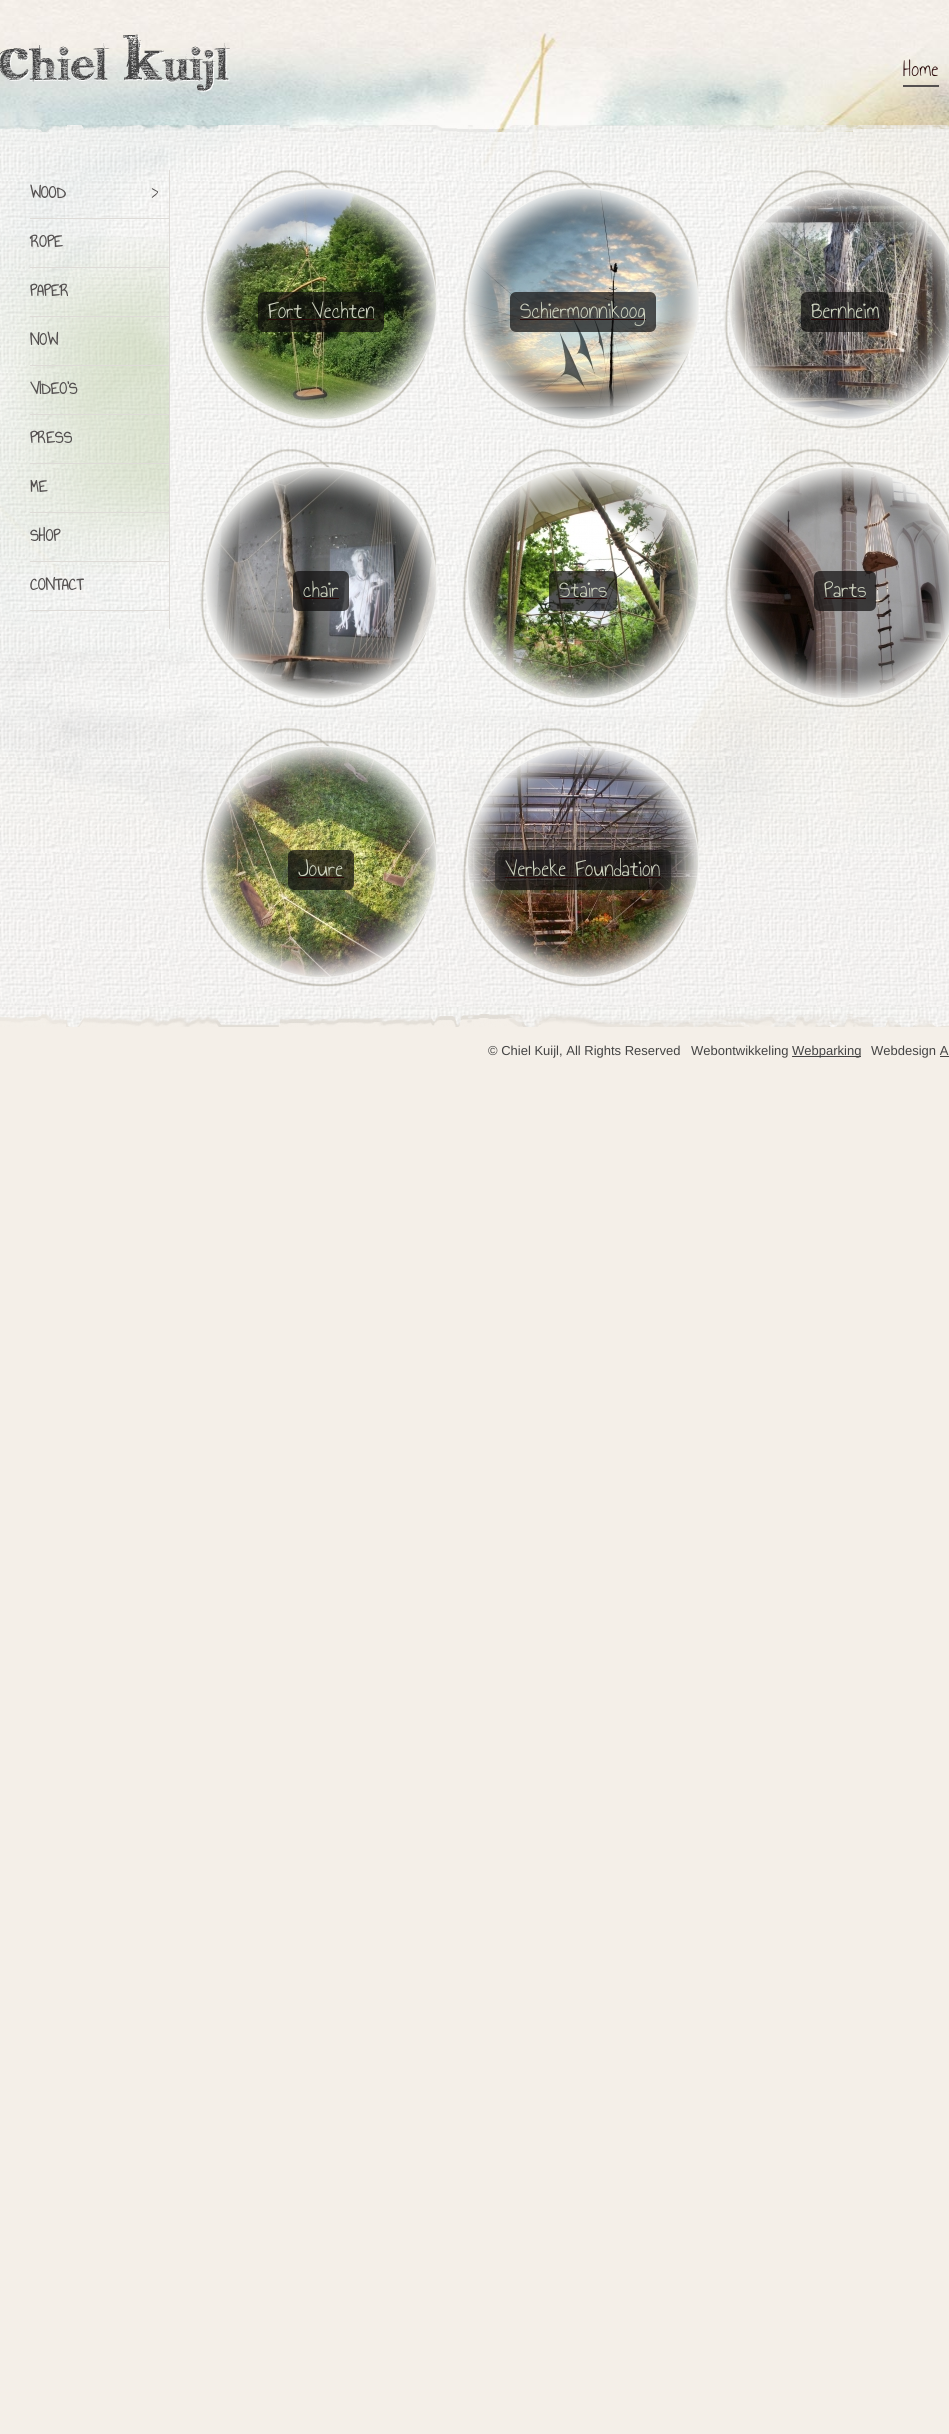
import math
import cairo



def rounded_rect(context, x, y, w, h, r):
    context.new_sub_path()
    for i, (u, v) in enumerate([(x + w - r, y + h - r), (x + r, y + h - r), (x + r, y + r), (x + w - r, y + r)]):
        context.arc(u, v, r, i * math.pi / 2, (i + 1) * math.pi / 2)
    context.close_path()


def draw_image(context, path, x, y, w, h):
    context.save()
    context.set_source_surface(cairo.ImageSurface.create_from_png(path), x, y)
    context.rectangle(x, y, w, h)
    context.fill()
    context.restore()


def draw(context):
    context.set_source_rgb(244 / 255, 239 / 255, 232 / 255)
    context.paint()
    draw_image(context, "images/1.png", 0, 0, 949, 863)
    draw_image(context, "images/2.png", 0, 34, 230, 58)
    context.set_source_rgb(84 / 255, 80 / 255, 80 / 255)
    context.rectangle(903, 85, 36, 2)
    context.fill()
    draw_image(context, "images/3.png", 0, 140, 949, 867)
    draw_image(context, "images/4.png", 0, 125, 949, 15)
    context.set_source_rgb(222 / 255, 219 / 255, 215 / 255)
    context.rectangle(169, 170, 1, 459)
    context.fill()
    context.rectangle(30, 218, 139, 1)
    context.fill()
    draw_image(context, "images/5.png", 0, 237, 169, 336)
    context.rectangle(30, 267, 139, 1)
    context.fill()
    context.rectangle(30, 316, 139, 1)
    context.fill()
    context.rectangle(30, 365, 139, 1)
    context.fill()
    context.rectangle(30, 414, 139, 1)
    context.fill()
    context.rectangle(30, 463, 139, 1)
    context.fill()
    context.rectangle(30, 512, 139, 1)
    context.fill()
    context.rectangle(30, 561, 139, 1)
    context.fill()
    context.rectangle(30, 610, 139, 1)
    context.fill()
    draw_image(context, "images/6.png", 200, 170, 237, 259)
    draw_image(context, "images/7.png", 206, 189, 230, 230)
    context.set_source_rgba(15 / 255, 14 / 255, 14 / 255, 0.7)
    rounded_rect(context, 258, 292, 126, 40, 6)
    context.fill()
    context.set_source_rgb(42 / 255, 9 / 255, 9 / 255)
    context.rectangle(268, 319, 106, 1)
    context.fill()
    draw_image(context, "images/9.png", 462, 170, 237, 259)
    draw_image(context, "images/10.png", 468, 189, 230, 230)
    context.set_source_rgba(15 / 255, 14 / 255, 14 / 255, 0.7)
    rounded_rect(context, 510, 292, 146, 40, 6)
    context.fill()
    context.set_source_rgb(42 / 255, 9 / 255, 9 / 255)
    context.rectangle(520, 319, 126, 1)
    context.fill()
    draw_image(context, "images/12.png", 724, 170, 225, 259)
    draw_image(context, "images/13.png", 730, 189, 219, 230)
    context.set_source_rgba(15 / 255, 14 / 255, 14 / 255, 0.7)
    rounded_rect(context, 801, 292, 88, 40, 6)
    context.fill()
    context.set_source_rgb(42 / 255, 9 / 255, 9 / 255)
    context.rectangle(811, 319, 68, 1)
    context.fill()
    draw_image(context, "images/15.png", 200, 449, 237, 259)
    draw_image(context, "images/16.png", 206, 468, 230, 230)
    context.set_source_rgba(15 / 255, 14 / 255, 14 / 255, 0.7)
    rounded_rect(context, 293, 571, 56, 40, 6)
    context.fill()
    context.set_source_rgb(42 / 255, 9 / 255, 9 / 255)
    context.rectangle(303, 598, 36, 1)
    context.fill()
    draw_image(context, "images/18.png", 462, 449, 237, 259)
    draw_image(context, "images/19.png", 468, 468, 230, 230)
    context.set_source_rgba(15 / 255, 14 / 255, 14 / 255, 0.7)
    rounded_rect(context, 549, 571, 68, 40, 6)
    context.fill()
    context.set_source_rgb(42 / 255, 9 / 255, 9 / 255)
    context.rectangle(559, 598, 48, 1)
    context.fill()
    draw_image(context, "images/21.png", 724, 449, 225, 259)
    draw_image(context, "images/22.png", 730, 468, 219, 230)
    context.set_source_rgba(15 / 255, 14 / 255, 14 / 255, 0.7)
    rounded_rect(context, 814, 571, 62, 40, 6)
    context.fill()
    context.set_source_rgb(42 / 255, 9 / 255, 9 / 255)
    context.rectangle(824, 598, 42, 1)
    context.fill()
    draw_image(context, "images/24.png", 200, 728, 237, 259)
    draw_image(context, "images/25.png", 206, 747, 230, 230)
    context.set_source_rgba(15 / 255, 14 / 255, 14 / 255, 0.7)
    rounded_rect(context, 288, 850, 66, 40, 6)
    context.fill()
    context.set_source_rgb(42 / 255, 9 / 255, 9 / 255)
    context.rectangle(298, 877, 46, 1)
    context.fill()
    draw_image(context, "images/27.png", 462, 728, 237, 259)
    draw_image(context, "images/28.png", 468, 747, 230, 230)
    context.set_source_rgba(15 / 255, 14 / 255, 14 / 255, 0.7)
    rounded_rect(context, 495, 850, 176, 40, 6)
    context.fill()
    context.set_source_rgb(42 / 255, 9 / 255, 9 / 255)
    context.rectangle(505, 877, 156, 1)
    context.fill()
    draw_image(context, "images/30.png", 0, 1007, 949, 20)
    context.set_source_rgb(68 / 255, 68 / 255, 68 / 255)
    context.rectangle(792, 1056, 69, 1)
    context.fill()
    context.rectangle(940, 1056, 9, 1)
    context.fill()
    context.select_font_face("Annie Use Your Telescope")
    context.set_font_size(22)
    context.set_source_rgb(42 / 255, 9 / 255, 9 / 255)
    context.move_to(903, 76)
    context.show_text("Home")
    context.select_font_face("Annie Use Your Telescope", cairo.FontSlant.NORMAL, cairo.FontWeight.BOLD)
    context.set_font_size(18)
    context.set_source_rgb(84 / 255, 80 / 255, 80 / 255)
    context.move_to(30, 198)
    context.show_text("WOOD")
    context.select_font_face("Shadows Into Light Light")
    context.move_to(151, 200)
    context.show_text(">")
    context.select_font_face("Annie Use Your Telescope", cairo.FontSlant.NORMAL, cairo.FontWeight.BOLD)
    context.move_to(30, 247)
    context.show_text("ROPE")
    context.move_to(30, 296)
    context.show_text("PAPER")
    context.move_to(30, 345)
    context.show_text("NOW")
    context.move_to(30, 394)
    context.show_text("VIDEO'S")
    context.move_to(30, 443)
    context.show_text("PRESS")
    context.move_to(30, 492)
    context.show_text("ME")
    context.move_to(30, 541)
    context.show_text("SHOP")
    context.move_to(30, 590)
    context.show_text("CONTACT")
    context.select_font_face("Annie Use Your Telescope")
    context.set_font_size(24)
    context.set_source_rgb(206 / 255, 211 / 255, 192 / 255)
    context.move_to(268, 318)
    context.show_text("Fort Vechten")
    draw_image(context, "images/8.png", 205, 188, 232, 232)
    context.move_to(520, 318)
    context.show_text("Schiermonnikoog")
    draw_image(context, "images/11.png", 467, 188, 232, 232)
    context.move_to(811, 318)
    context.show_text("Bernheim")
    draw_image(context, "images/14.png", 729, 188, 220, 232)
    context.move_to(303, 597)
    context.show_text("chair")
    draw_image(context, "images/17.png", 205, 467, 232, 232)
    context.move_to(559, 597)
    context.show_text("Stairs")
    draw_image(context, "images/20.png", 467, 467, 232, 232)
    context.move_to(824, 597)
    context.show_text("Parts")
    draw_image(context, "images/23.png", 729, 467, 220, 232)
    context.move_to(298, 876)
    context.show_text("Joure")
    draw_image(context, "images/26.png", 205, 746, 232, 232)
    context.move_to(505, 876)
    context.show_text("Verbeke Foundation")
    draw_image(context, "images/29.png", 467, 746, 232, 232)
    context.select_font_face("Liberation Sans")
    context.set_font_size(13)
    context.set_source_rgb(68 / 255, 68 / 255, 68 / 255)
    context.move_to(488, 1055)
    context.show_text("© Chiel Kuijl, All Rights Reserved")
    context.move_to(691, 1055)
    context.show_text("Webontwikkeling")
    context.move_to(792, 1055)
    context.show_text("Webparking")
    context.move_to(871, 1055)
    context.show_text("Webdesign A")


surface = cairo.ImageSurface(cairo.Format.RGB24, 949, 2434)
context = cairo.Context(surface)
options = cairo.FontOptions()
options.set_hint_metrics(cairo.HintMetrics.OFF)
options.set_hint_style(cairo.HintStyle.NONE)
context.set_font_options(options)
context.set_miter_limit(4)
draw(context)
surface.write_to_png("out.png")
